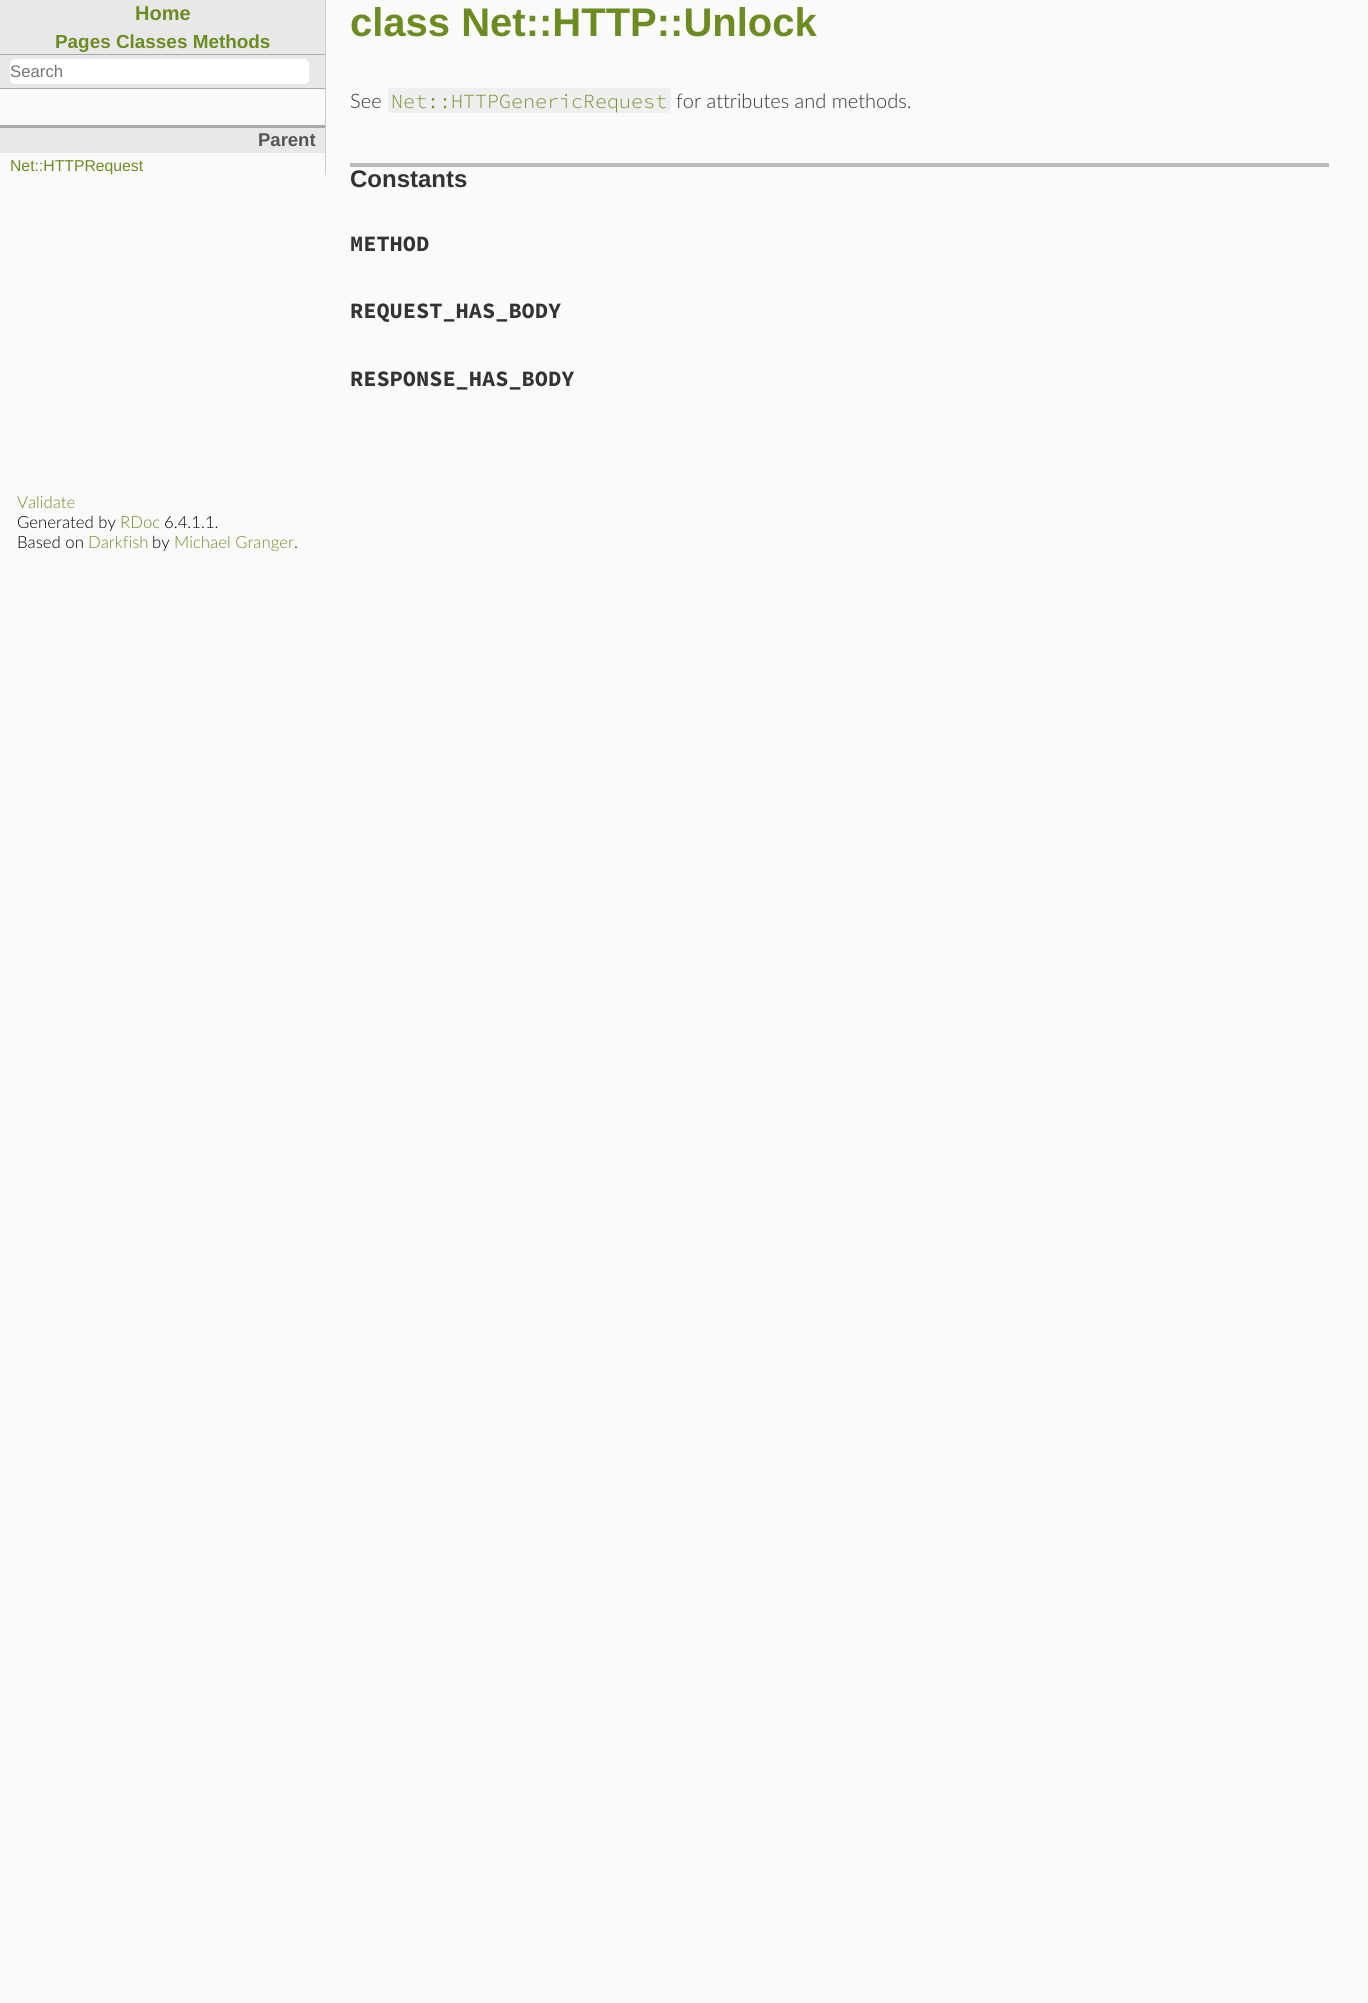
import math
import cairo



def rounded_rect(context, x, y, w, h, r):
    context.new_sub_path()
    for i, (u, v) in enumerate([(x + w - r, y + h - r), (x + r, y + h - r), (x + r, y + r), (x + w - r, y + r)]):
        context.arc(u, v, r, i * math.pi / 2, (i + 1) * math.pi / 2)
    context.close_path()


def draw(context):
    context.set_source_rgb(250 / 255, 250 / 255, 250 / 255)
    context.paint()
    context.set_source_rgb(204 / 255, 204 / 255, 204 / 255)
    context.rectangle(325, 0, 1, 175)
    context.fill()
    context.set_source_rgb(232 / 255, 232 / 255, 232 / 255)
    context.rectangle(0, 0, 325, 54)
    context.fill()
    context.rectangle(0, 55, 325, 33)
    context.fill()
    context.set_source_rgb(170 / 255, 170 / 255, 170 / 255)
    context.rectangle(0, 54, 325, 1)
    context.fill()
    context.rectangle(0, 88, 325, 1)
    context.fill()
    context.set_source_rgb(1, 1, 1)
    rounded_rect(context, 10, 59, 299, 25, 5)
    context.fill()
    context.set_source_rgb(170 / 255, 170 / 255, 170 / 255)
    context.rectangle(0, 125, 325, 3)
    context.fill()
    context.set_source_rgb(232 / 255, 232 / 255, 232 / 255)
    context.rectangle(0, 128, 325, 25)
    context.fill()
    context.set_source_rgb(239 / 255, 239 / 255, 239 / 255)
    rounded_rect(context, 388, 88, 283, 25, 4)
    context.fill()
    context.set_source_rgb(187 / 255, 187 / 255, 187 / 255)
    context.rectangle(350, 163, 979, 4)
    context.fill()
    context.select_font_face("Liberation Sans", cairo.FontSlant.NORMAL, cairo.FontWeight.BOLD)
    context.set_font_size(20)
    context.set_source_rgb(108 / 255, 140 / 255, 34 / 255)
    context.move_to(135, 20)
    context.show_text("Home")
    context.set_font_size(18.9)
    context.move_to(55, 48)
    context.show_text("Pages Classes Methods")
    context.select_font_face("Liberation Sans")
    context.set_font_size(16.75)
    context.set_source_rgb(117 / 255, 117 / 255, 117 / 255)
    context.move_to(10, 77)
    context.show_text("Search")
    context.select_font_face("Liberation Sans", cairo.FontSlant.NORMAL, cairo.FontWeight.BOLD)
    context.set_font_size(18.5)
    context.set_source_rgb(85 / 255, 85 / 255, 85 / 255)
    context.move_to(258, 146)
    context.show_text("Parent")
    context.select_font_face("Liberation Sans")
    context.set_font_size(15.75)
    context.set_source_rgb(108 / 255, 140 / 255, 34 / 255)
    context.move_to(10, 171)
    context.show_text("Net::HTTPRequest")
    context.select_font_face("Liberation Sans", cairo.FontSlant.NORMAL, cairo.FontWeight.BOLD)
    context.set_font_size(40)
    context.move_to(350, 36)
    context.show_text("class Net::HTTP::Unlock")
    context.select_font_face("Lato Light")
    context.set_font_size(20)
    context.set_source_rgb(51 / 255, 51 / 255, 51 / 255)
    context.move_to(350, 108)
    context.show_text("See")
    context.select_font_face("Source Code Pro Light")
    context.set_source_rgb(108 / 255, 140 / 255, 34 / 255)
    context.move_to(391, 108)
    context.show_text("Net::HTTPGenericRequest")
    context.select_font_face("Lato Light")
    context.set_source_rgb(51 / 255, 51 / 255, 51 / 255)
    context.move_to(676, 108)
    context.show_text("for attributes and methods.")
    context.select_font_face("Liberation Sans", cairo.FontSlant.NORMAL, cairo.FontWeight.BOLD)
    context.set_font_size(24)
    context.move_to(350, 187)
    context.show_text("Constants")
    context.select_font_face("Source Code Pro", cairo.FontSlant.NORMAL, cairo.FontWeight.BOLD)
    context.set_font_size(22)
    context.move_to(350, 251)
    context.show_text("METHOD")
    context.move_to(350, 318)
    context.show_text("REQUEST_HAS_BODY")
    context.move_to(350, 386)
    context.show_text("RESPONSE_HAS_BODY")
    context.select_font_face("Lato Light")
    context.set_font_size(16.75)
    context.set_source_rgb(108 / 255, 140 / 255, 34 / 255)
    context.move_to(17, 508)
    context.show_text("Validate")
    context.set_source_rgb(0, 0, 0)
    context.move_to(17, 528)
    context.show_text("Generated by")
    context.set_source_rgb(108 / 255, 140 / 255, 34 / 255)
    context.move_to(120, 528)
    context.show_text("RDoc")
    context.set_source_rgb(0, 0, 0)
    context.move_to(164, 528)
    context.show_text("6.4.1.1.")
    context.move_to(17, 548)
    context.show_text("Based on")
    context.set_source_rgb(108 / 255, 140 / 255, 34 / 255)
    context.move_to(88, 548)
    context.show_text("Darkfish")
    context.set_source_rgb(0, 0, 0)
    context.move_to(152, 548)
    context.show_text("by")
    context.set_source_rgb(108 / 255, 140 / 255, 34 / 255)
    context.move_to(174, 548)
    context.show_text("Michael Granger")
    context.set_source_rgb(0, 0, 0)
    context.move_to(294, 548)
    context.show_text(".")


surface = cairo.ImageSurface(cairo.Format.RGB24, 1368, 2003)
context = cairo.Context(surface)
options = cairo.FontOptions()
options.set_hint_metrics(cairo.HintMetrics.OFF)
options.set_hint_style(cairo.HintStyle.NONE)
context.set_font_options(options)
context.set_miter_limit(4)
draw(context)
surface.write_to_png("out.png")
